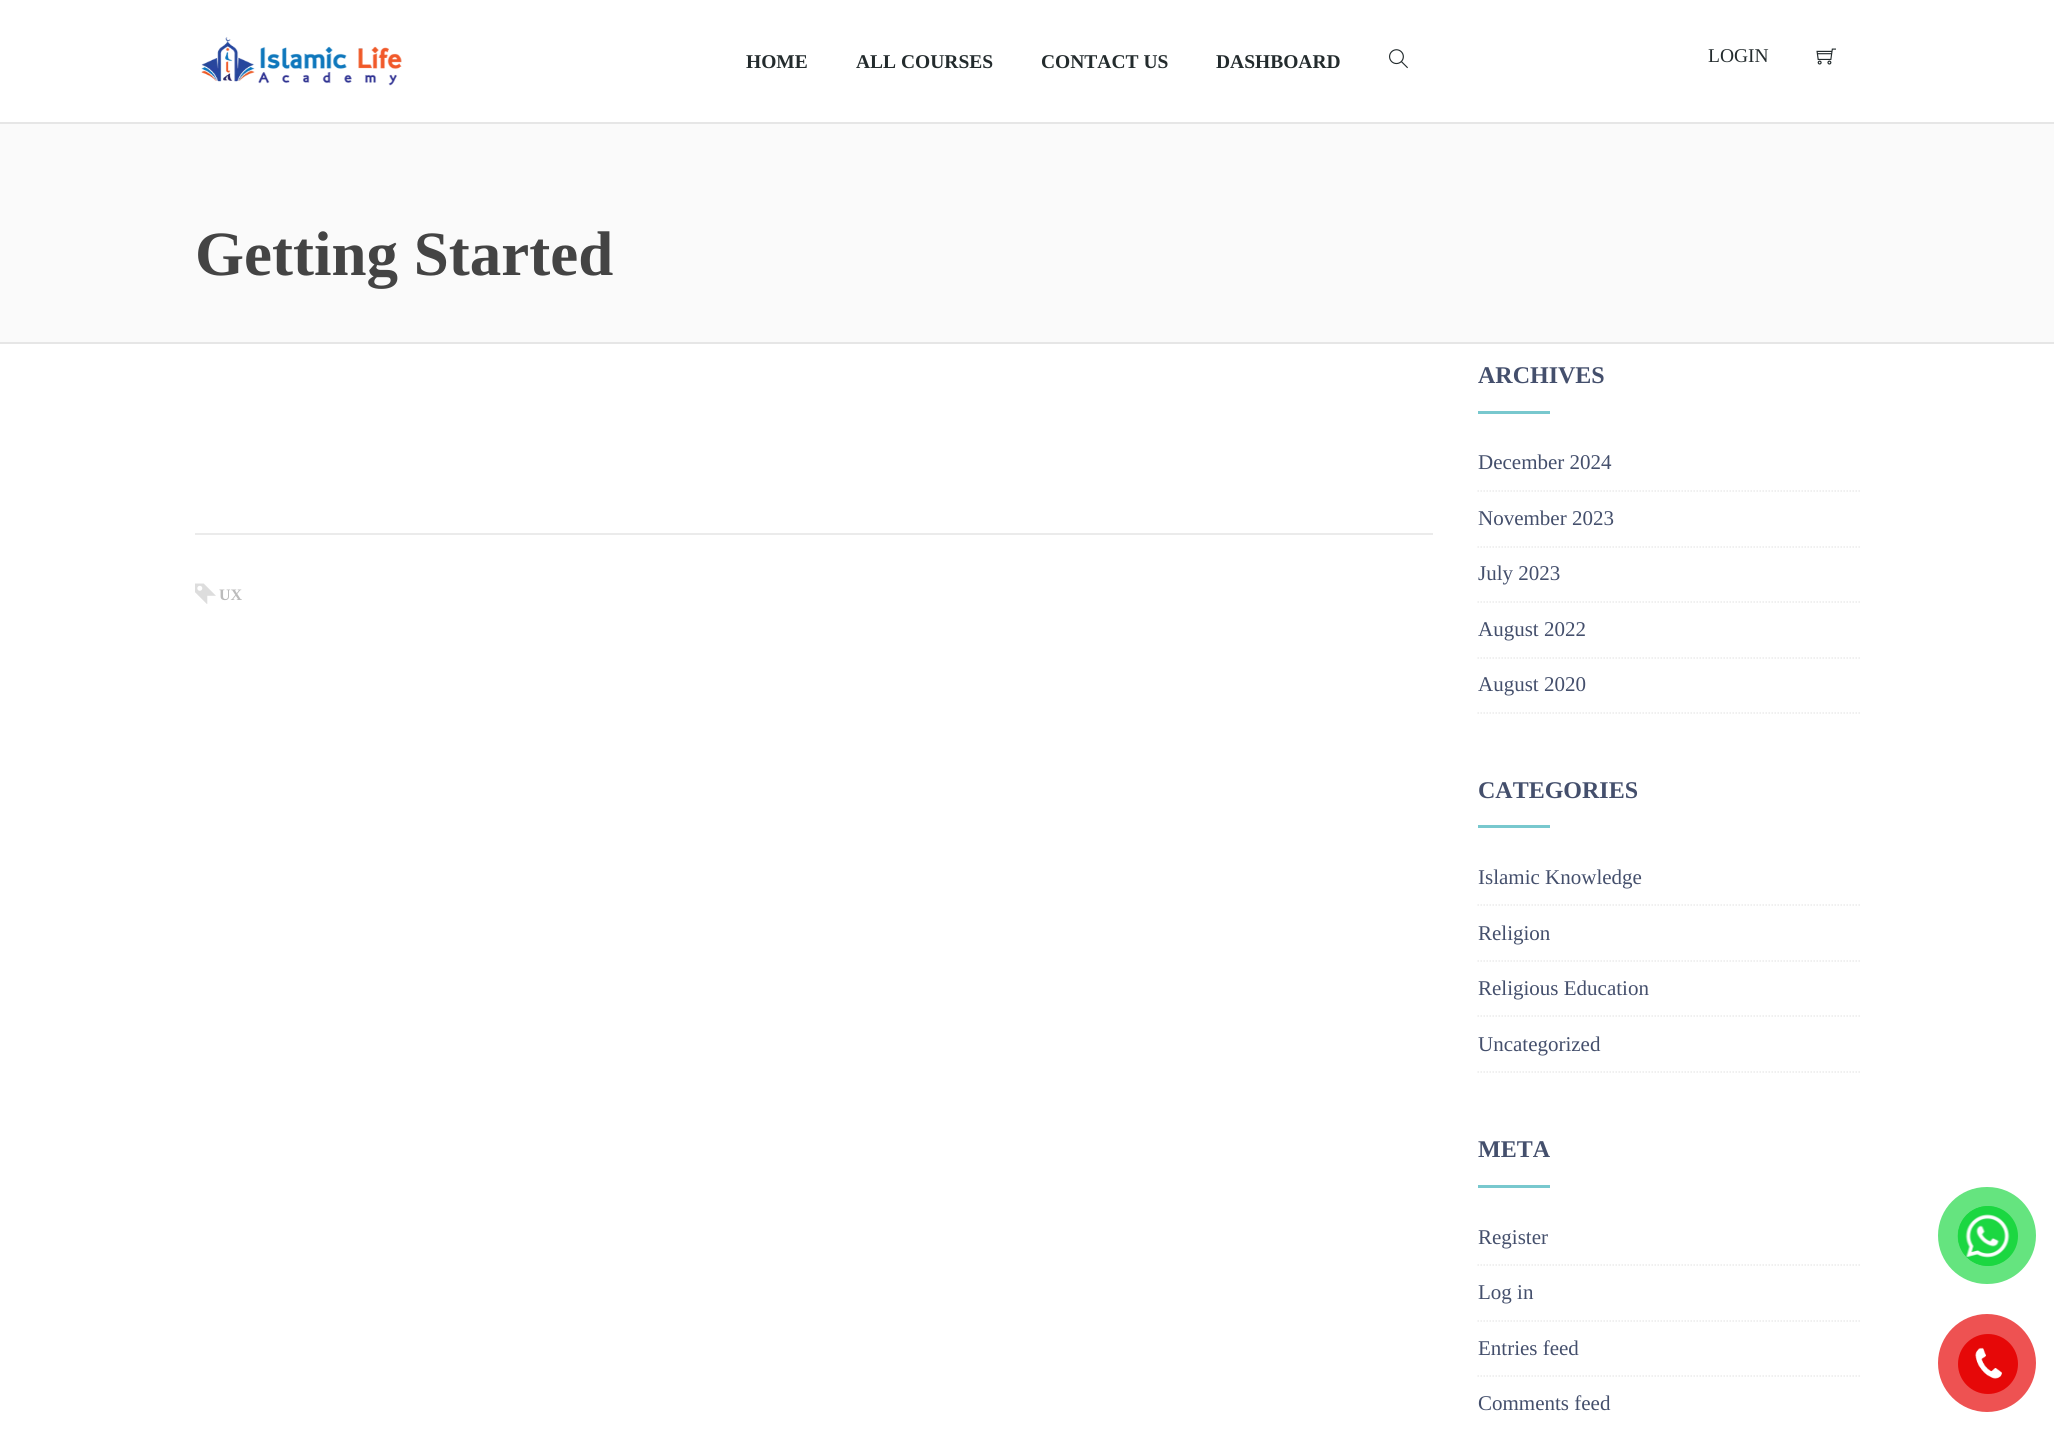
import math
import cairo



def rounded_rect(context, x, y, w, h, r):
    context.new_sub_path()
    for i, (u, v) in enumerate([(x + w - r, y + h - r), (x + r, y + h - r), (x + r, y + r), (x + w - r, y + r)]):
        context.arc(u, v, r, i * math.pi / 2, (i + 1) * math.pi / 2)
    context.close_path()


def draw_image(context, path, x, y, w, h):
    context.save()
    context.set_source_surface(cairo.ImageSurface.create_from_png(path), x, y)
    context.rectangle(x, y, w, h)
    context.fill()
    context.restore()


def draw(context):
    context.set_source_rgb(1, 1, 1)
    context.paint()
    draw_image(context, "images/1.png", 201, 37, 201, 49)
    draw_image(context, "images/2.png", 1389, 49, 19, 20)
    draw_image(context, "images/3.png", 1816, 48, 20, 17)
    context.set_source_rgb(250 / 255, 250 / 255, 250 / 255)
    context.rectangle(0, 124, 2054, 218)
    context.fill()
    context.set_source_rgb(230 / 255, 230 / 255, 230 / 255)
    context.rectangle(0, 122, 2054, 2)
    context.fill()
    context.rectangle(0, 342, 2054, 2)
    context.fill()
    context.set_source_rgb(235 / 255, 235 / 255, 235 / 255)
    context.rectangle(195, 533, 1238, 2)
    context.fill()
    draw_image(context, "images/4.png", 195, 583, 21, 21)
    context.set_source_rgb(120 / 255, 200 / 255, 206 / 255)
    context.rectangle(1478, 411, 72, 3)
    context.fill()
    context.new_path()
    context.move_to(1477.5, 491)
    context.line_to(1860, 491)
    context.set_source_rgb(235 / 255, 235 / 255, 235 / 255)
    context.set_line_width(1.5)
    context.set_dash([1.5, 1.5])
    context.stroke()
    context.new_path()
    context.move_to(1477.5, 547)
    context.line_to(1860, 547)
    context.stroke()
    context.new_path()
    context.move_to(1477.5, 602)
    context.line_to(1860, 602)
    context.stroke()
    context.new_path()
    context.move_to(1477.5, 658)
    context.line_to(1860, 658)
    context.stroke()
    context.new_path()
    context.move_to(1477.5, 713)
    context.line_to(1860, 713)
    context.stroke()
    context.set_source_rgb(120 / 255, 200 / 255, 206 / 255)
    context.rectangle(1478, 825, 72, 3)
    context.fill()
    context.new_path()
    context.move_to(1477.5, 905)
    context.line_to(1860, 905)
    context.set_source_rgb(235 / 255, 235 / 255, 235 / 255)
    context.stroke()
    context.new_path()
    context.move_to(1477.5, 961)
    context.line_to(1860, 961)
    context.stroke()
    context.new_path()
    context.move_to(1477.5, 1016)
    context.line_to(1860, 1016)
    context.stroke()
    context.new_path()
    context.move_to(1477.5, 1072)
    context.line_to(1860, 1072)
    context.stroke()
    context.set_source_rgb(120 / 255, 200 / 255, 206 / 255)
    context.rectangle(1478, 1185, 72, 3)
    context.fill()
    context.new_path()
    context.move_to(1477.5, 1265)
    context.line_to(1860, 1265)
    context.set_source_rgb(235 / 255, 235 / 255, 235 / 255)
    context.stroke()
    context.new_path()
    context.move_to(1477.5, 1321)
    context.line_to(1860, 1321)
    context.stroke()
    context.new_path()
    context.move_to(1477.5, 1376)
    context.line_to(1860, 1376)
    context.stroke()
    context.set_source_rgb(101 / 255, 228 / 255, 127 / 255)
    rounded_rect(context, 1938, 1187, 98, 97, 48.5)
    context.fill()
    context.set_source_rgb(28 / 255, 215 / 255, 65 / 255)
    context.arc(1988, 1236, 30, 0, 2 * math.pi)
    context.fill()
    draw_image(context, "images/5.png", 1957, 1206, 53, 60)
    context.set_source_rgb(238 / 255, 82 / 255, 82 / 255)
    context.arc(1987, 1363, 49, 0, 2 * math.pi)
    context.fill()
    context.set_source_rgb(230 / 255, 8 / 255, 8 / 255)
    context.arc(1988, 1364, 30, 0, 2 * math.pi)
    context.fill()
    draw_image(context, "images/6.png", 1975, 1347, 27, 32)
    context.select_font_face("Liberation Serif", cairo.FontSlant.NORMAL, cairo.FontWeight.BOLD)
    context.set_font_size(19.5)
    context.set_source_rgb(35 / 255, 43 / 255, 45 / 255)
    context.move_to(746, 68)
    context.show_text("HOME")
    context.move_to(856, 68)
    context.show_text("ALL COURSES")
    context.move_to(1041, 68)
    context.show_text("CONTACT US")
    context.move_to(1216, 68)
    context.show_text("DASHBOARD")
    context.select_font_face("Liberation Serif")
    context.move_to(1708, 62)
    context.show_text("LOGIN")
    context.select_font_face("Liberation Serif", cairo.FontSlant.NORMAL, cairo.FontWeight.BOLD)
    context.set_font_size(63)
    context.set_source_rgb(68 / 255, 68 / 255, 68 / 255)
    context.move_to(195, 275)
    context.show_text("Getting Started")
    context.set_font_size(16)
    context.set_source_rgb(187 / 255, 187 / 255, 187 / 255)
    context.move_to(219, 600)
    context.show_text("UX")
    context.set_font_size(24)
    context.set_source_rgb(68 / 255, 79 / 255, 108 / 255)
    context.move_to(1478, 383)
    context.show_text("ARCHIVES")
    context.select_font_face("Liberation Serif")
    context.set_font_size(21)
    context.move_to(1478, 469)
    context.show_text("December 2024")
    context.move_to(1478, 525)
    context.show_text("November 2023")
    context.move_to(1478, 580)
    context.show_text("July 2023")
    context.move_to(1478, 636)
    context.show_text("August 2022")
    context.move_to(1478, 691)
    context.show_text("August 2020")
    context.select_font_face("Liberation Serif", cairo.FontSlant.NORMAL, cairo.FontWeight.BOLD)
    context.set_font_size(24)
    context.move_to(1478, 798)
    context.show_text("CATEGORIES")
    context.select_font_face("Liberation Serif")
    context.set_font_size(21)
    context.move_to(1478, 884)
    context.show_text("Islamic Knowledge")
    context.move_to(1478, 940)
    context.show_text("Religion")
    context.move_to(1478, 995)
    context.show_text("Religious Education")
    context.move_to(1478, 1051)
    context.show_text("Uncategorized")
    context.select_font_face("Liberation Serif", cairo.FontSlant.NORMAL, cairo.FontWeight.BOLD)
    context.set_font_size(24)
    context.move_to(1478, 1157)
    context.show_text("META")
    context.select_font_face("Liberation Serif")
    context.set_font_size(21)
    context.move_to(1478, 1244)
    context.show_text("Register")
    context.move_to(1478, 1299)
    context.show_text("Log in")
    context.move_to(1478, 1355)
    context.show_text("Entries feed")
    context.move_to(1478, 1410)
    context.show_text("Comments feed")


surface = cairo.ImageSurface(cairo.Format.RGB24, 2054, 1431)
context = cairo.Context(surface)
options = cairo.FontOptions()
options.set_hint_metrics(cairo.HintMetrics.OFF)
options.set_hint_style(cairo.HintStyle.NONE)
context.set_font_options(options)
context.set_miter_limit(4)
draw(context)
surface.write_to_png("out.png")
